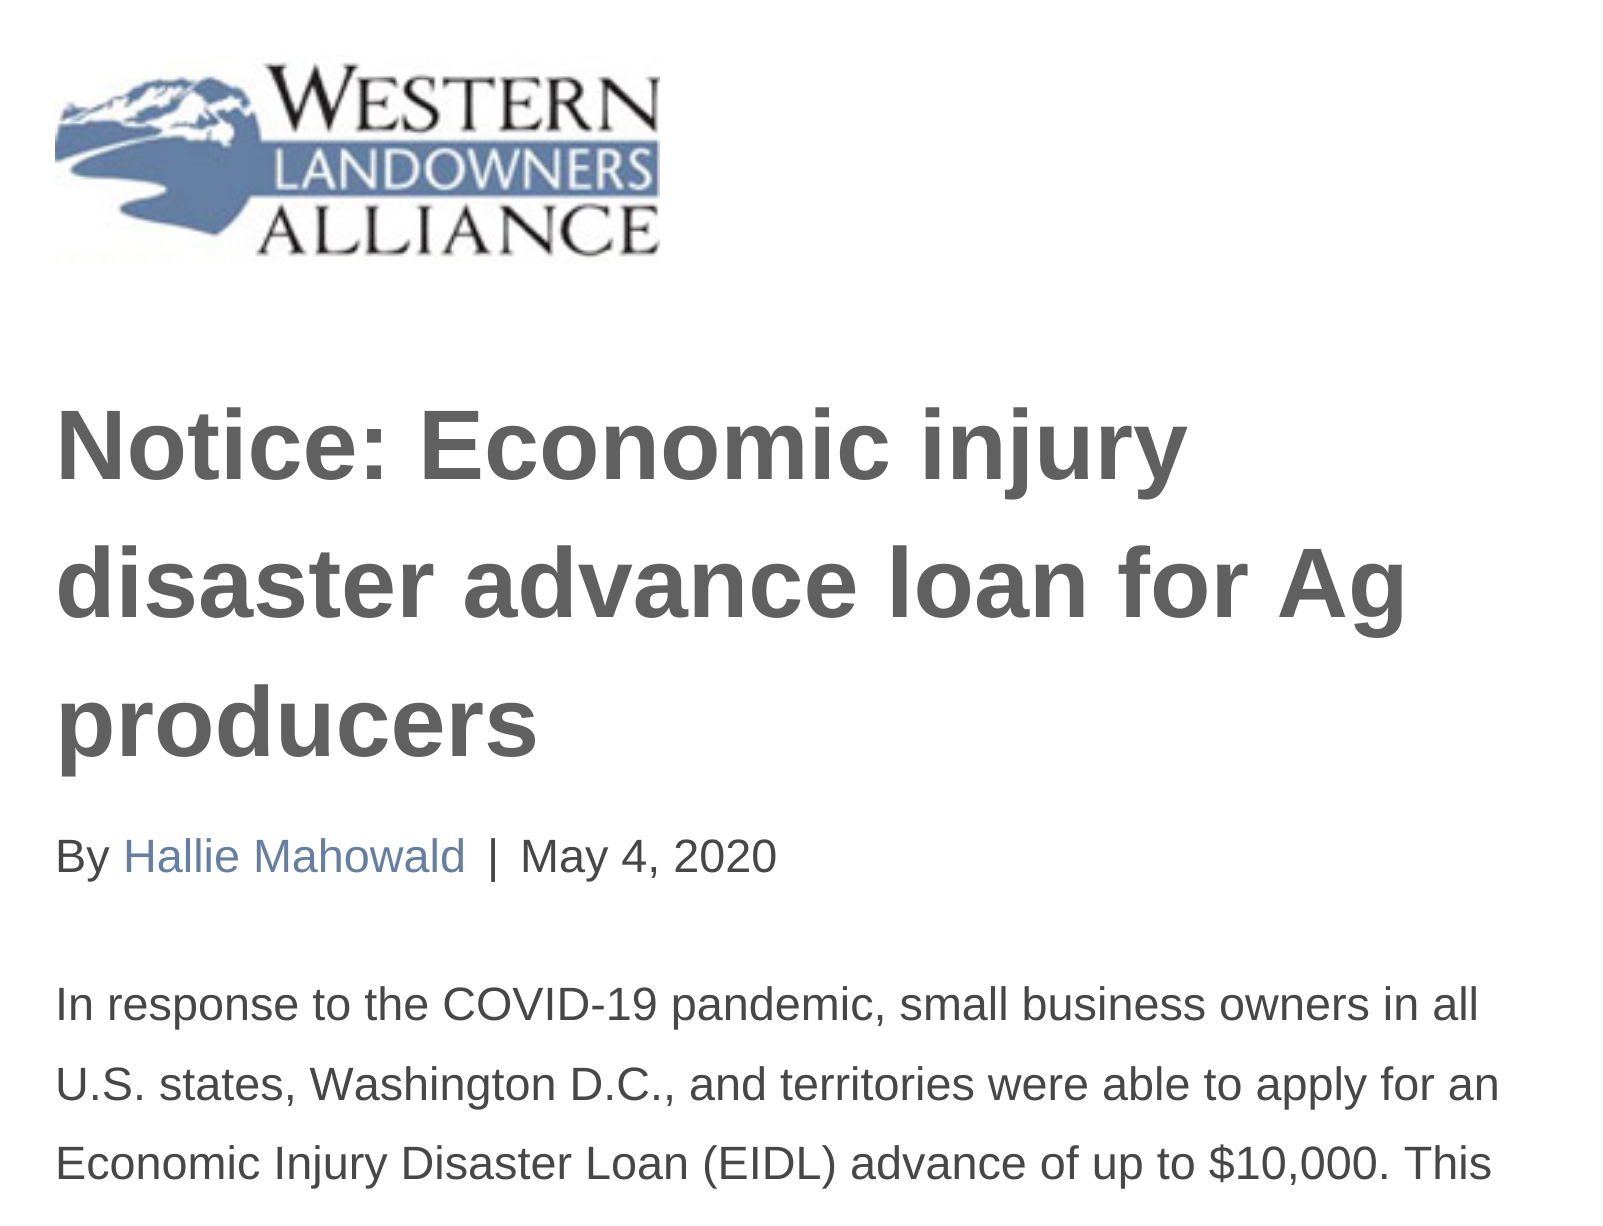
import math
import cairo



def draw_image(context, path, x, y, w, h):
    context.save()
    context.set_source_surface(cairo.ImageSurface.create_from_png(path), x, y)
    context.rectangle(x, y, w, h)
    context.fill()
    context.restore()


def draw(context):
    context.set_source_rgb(1, 1, 1)
    context.paint()
    draw_image(context, "images/1.png", 55, 55, 605, 209)
    context.select_font_face("Liberation Sans", cairo.FontSlant.NORMAL, cairo.FontWeight.BOLD)
    context.set_font_size(99)
    context.set_source_rgb(96 / 255, 96 / 255, 96 / 255)
    context.move_to(55, 479)
    context.show_text("Notice: Economic injury")
    context.move_to(55, 617)
    context.show_text("disaster advance loan for Ag")
    context.move_to(55, 756)
    context.show_text("producers")
    context.select_font_face("Liberation Sans")
    context.set_font_size(46.75)
    context.set_source_rgb(71 / 255, 71 / 255, 71 / 255)
    context.move_to(55, 872)
    context.show_text("By")
    context.set_source_rgb(101 / 255, 127 / 255, 162 / 255)
    context.move_to(123, 872)
    context.show_text("Hallie Mahowald")
    context.set_source_rgb(71 / 255, 71 / 255, 71 / 255)
    context.move_to(487, 872)
    context.show_text("|")
    context.move_to(520, 872)
    context.show_text("May 4, 2020")
    context.move_to(55, 1020)
    context.show_text("In response to the COVID-19 pandemic, small business owners in all")
    context.move_to(55, 1100)
    context.show_text("U.S. states, Washington D.C., and territories were able to apply for an")
    context.move_to(55, 1179)
    context.show_text("Economic Injury Disaster Loan (EIDL) advance of up to $10,000. This")


surface = cairo.ImageSurface(cairo.Format.RGB24, 1603, 1226)
context = cairo.Context(surface)
options = cairo.FontOptions()
options.set_hint_metrics(cairo.HintMetrics.OFF)
options.set_hint_style(cairo.HintStyle.NONE)
context.set_font_options(options)
context.set_miter_limit(4)
draw(context)
surface.write_to_png("out.png")
